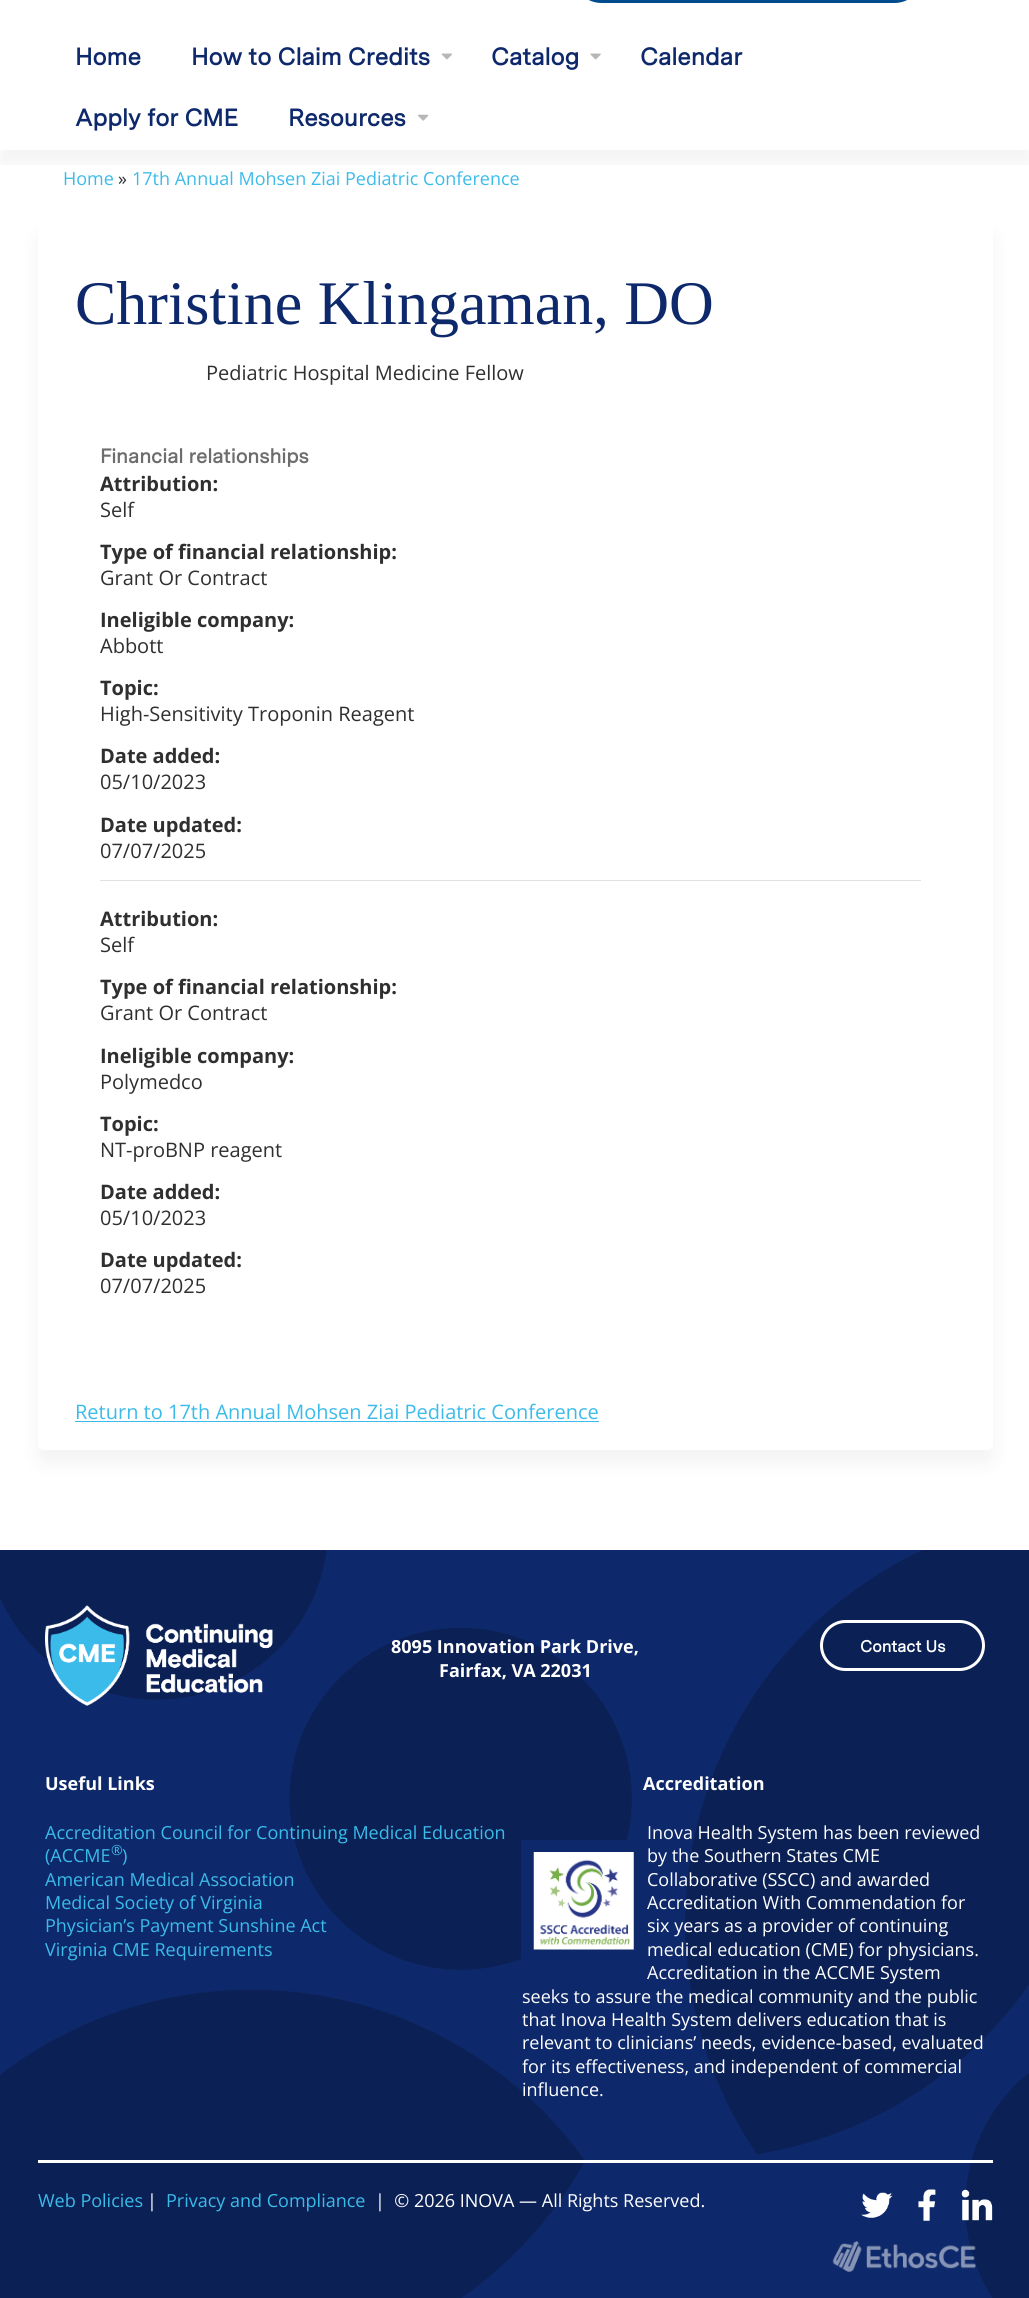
import math
import cairo



def rounded_rect(context, x, y, w, h, r):
    context.new_sub_path()
    for i, (u, v) in enumerate([(x + w - r, y + h - r), (x + r, y + h - r), (x + r, y + r), (x + w - r, y + r)]):
        context.arc(u, v, r, i * math.pi / 2, (i + 1) * math.pi / 2)
    context.close_path()


def draw_shadow(context, x, y, w, h, r, blur, alpha):
    context.push_group_with_content(cairo.Content.ALPHA)
    context.set_operator(cairo.Operator.SOURCE)
    for i in range(15, -16, -2):
        e = blur * i / 6
        if min(w, h) + 2 * e > 0:
            context.set_source_rgba(0, 0, 0, alpha * math.erfc((i - 1) / 8.5) / 2)
            rounded_rect(context, x - e, y - e, w + 2 * e, h + 2 * e, max(0, min(r + e + blur * .6, min(w, h) / 2 + e)))
            context.fill()
    context.mask(context.pop_group())


def draw_image(context, path, x, y, w, h):
    context.save()
    context.set_source_surface(cairo.ImageSurface.create_from_png(path), x, y)
    context.rectangle(x, y, w, h)
    context.fill()
    context.restore()


def draw(context):
    context.set_source_rgb(1, 1, 1)
    context.paint()
    rounded_rect(context, 574.5, -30.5, 347, 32, 27)
    context.set_source_rgb(0, 75 / 255, 141 / 255)
    context.set_line_width(3)
    context.stroke()
    context.save()
    context.rectangle(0, 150, 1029, 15)
    context.clip()
    context.set_source_rgb(0, 0, 0)
    draw_shadow(context, 0, 40, 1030, 123, 0, 9.5, 0.05)
    context.restore()
    draw_image(context, "images/1.png", 441, 53, 11, 7)
    draw_image(context, "images/2.png", 590, 53, 11, 7)
    draw_image(context, "images/3.png", 418, 114, 11, 7)
    context.set_source_rgb(0, 0, 0)
    draw_shadow(context, 38, 235, 955, 1228, 6, 9.5, 0.05)
    context.set_source_rgb(1, 1, 1)
    rounded_rect(context, 38, 223, 955, 1227, 6)
    context.fill()
    context.set_source_rgb(225 / 255, 225 / 255, 225 / 255)
    context.rectangle(100, 880, 821, 1)
    context.fill()
    context.set_source_rgb(59 / 255, 187 / 255, 234 / 255)
    context.rectangle(75, 1421, 524, 1)
    context.fill()
    context.set_source_rgb(14 / 255, 41 / 255, 107 / 255)
    context.rectangle(0, 1550, 1029, 748)
    context.fill()
    draw_image(context, "images/4.png", 0, 1550, 1029, 748)
    draw_image(context, "images/5.png", 45, 1605, 228, 101)
    rounded_rect(context, 821.5, 1621.5, 162, 48, 24)
    context.set_source_rgb(1, 1, 1)
    context.stroke()
    context.rectangle(527.5, 1846.5, 112, 110)
    context.set_source_rgb(14 / 255, 41 / 255, 107 / 255)
    context.set_line_width(13)
    context.stroke()
    draw_image(context, "images/6.png", 533, 1852, 101, 98)
    context.set_source_rgb(1, 1, 1)
    context.rectangle(38, 2160, 955, 3)
    context.fill()
    draw_image(context, "images/7.png", 861, 2192, 32, 26)
    draw_image(context, "images/8.png", 918, 2189, 18, 32)
    draw_image(context, "images/9.png", 961, 2189, 32, 32)
    draw_image(context, "images/10.png", 832, 2241, 144, 31)
    context.select_font_face("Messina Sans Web", cairo.FontSlant.NORMAL, cairo.FontWeight.BOLD)
    context.set_font_size(24)
    context.set_source_rgb(14 / 255, 41 / 255, 107 / 255)
    context.move_to(75, 65)
    context.show_text("Home")
    context.move_to(191, 65)
    context.show_text("How to Claim Credits")
    context.move_to(491, 65)
    context.show_text("Catalog")
    context.move_to(640, 65)
    context.show_text("Calendar")
    context.move_to(75, 126)
    context.show_text("Apply for CME")
    context.move_to(288, 126)
    context.show_text("Resources")
    context.select_font_face("Open Sans")
    context.set_font_size(18)
    context.set_source_rgb(59 / 255, 187 / 255, 234 / 255)
    context.move_to(63, 185)
    context.show_text("Home")
    context.set_source_rgb(47 / 255, 47 / 255, 47 / 255)
    context.move_to(118, 185)
    context.show_text("»")
    context.set_source_rgb(59 / 255, 187 / 255, 234 / 255)
    context.move_to(132, 185)
    context.show_text("17th Annual Mohsen Ziai Pediatric Conference")
    context.select_font_face("Liberation Serif")
    context.set_font_size(62)
    context.set_source_rgb(14 / 255, 41 / 255, 107 / 255)
    context.move_to(75, 324)
    context.show_text("Christine Klingaman, DO")
    context.select_font_face("Open Sans")
    context.set_font_size(20)
    context.set_source_rgb(47 / 255, 47 / 255, 47 / 255)
    context.move_to(206, 380)
    context.show_text("Pediatric Hospital Medicine Fellow")
    context.select_font_face("Messina Sans Web", cairo.FontSlant.NORMAL, cairo.FontWeight.BOLD)
    context.set_source_rgb(109 / 255, 109 / 255, 109 / 255)
    context.move_to(100, 463)
    context.show_text("Financial relationships")
    context.select_font_face("Open Sans", cairo.FontSlant.NORMAL, cairo.FontWeight.BOLD)
    context.set_source_rgb(47 / 255, 47 / 255, 47 / 255)
    context.move_to(100, 491)
    context.show_text("Attribution:")
    context.select_font_face("Open Sans")
    context.move_to(100, 517)
    context.show_text("Self")
    context.select_font_face("Open Sans", cairo.FontSlant.NORMAL, cairo.FontWeight.BOLD)
    context.move_to(100, 559)
    context.show_text("Type of financial relationship:")
    context.select_font_face("Open Sans")
    context.move_to(100, 585)
    context.show_text("Grant Or Contract")
    context.select_font_face("Open Sans", cairo.FontSlant.NORMAL, cairo.FontWeight.BOLD)
    context.move_to(100, 627)
    context.show_text("Ineligible company:")
    context.select_font_face("Open Sans")
    context.move_to(100, 653)
    context.show_text("Abbott")
    context.select_font_face("Open Sans", cairo.FontSlant.NORMAL, cairo.FontWeight.BOLD)
    context.move_to(100, 695)
    context.show_text("Topic:")
    context.select_font_face("Open Sans")
    context.move_to(100, 721)
    context.show_text("High-Sensitivity Troponin Reagent")
    context.select_font_face("Open Sans", cairo.FontSlant.NORMAL, cairo.FontWeight.BOLD)
    context.move_to(100, 763)
    context.show_text("Date added:")
    context.select_font_face("Open Sans")
    context.move_to(100, 789)
    context.show_text("05/10/2023")
    context.select_font_face("Open Sans", cairo.FontSlant.NORMAL, cairo.FontWeight.BOLD)
    context.move_to(100, 832)
    context.show_text("Date updated:")
    context.select_font_face("Open Sans")
    context.move_to(100, 858)
    context.show_text("07/07/2025")
    context.select_font_face("Open Sans", cairo.FontSlant.NORMAL, cairo.FontWeight.BOLD)
    context.move_to(100, 926)
    context.show_text("Attribution:")
    context.select_font_face("Open Sans")
    context.move_to(100, 952)
    context.show_text("Self")
    context.select_font_face("Open Sans", cairo.FontSlant.NORMAL, cairo.FontWeight.BOLD)
    context.move_to(100, 994)
    context.show_text("Type of financial relationship:")
    context.select_font_face("Open Sans")
    context.move_to(100, 1020)
    context.show_text("Grant Or Contract")
    context.select_font_face("Open Sans", cairo.FontSlant.NORMAL, cairo.FontWeight.BOLD)
    context.move_to(100, 1063)
    context.show_text("Ineligible company:")
    context.select_font_face("Open Sans")
    context.move_to(100, 1089)
    context.show_text("Polymedco")
    context.select_font_face("Open Sans", cairo.FontSlant.NORMAL, cairo.FontWeight.BOLD)
    context.move_to(100, 1131)
    context.show_text("Topic:")
    context.select_font_face("Open Sans")
    context.move_to(100, 1157)
    context.show_text("NT-proBNP reagent")
    context.select_font_face("Open Sans", cairo.FontSlant.NORMAL, cairo.FontWeight.BOLD)
    context.move_to(100, 1199)
    context.show_text("Date added:")
    context.select_font_face("Open Sans")
    context.move_to(100, 1225)
    context.show_text("05/10/2023")
    context.select_font_face("Open Sans", cairo.FontSlant.NORMAL, cairo.FontWeight.BOLD)
    context.move_to(100, 1267)
    context.show_text("Date updated:")
    context.select_font_face("Open Sans")
    context.move_to(100, 1293)
    context.show_text("07/07/2025")
    context.set_source_rgb(59 / 255, 187 / 255, 234 / 255)
    context.move_to(75, 1419)
    context.show_text("Return to 17th Annual Mohsen Ziai Pediatric Conference")
    context.select_font_face("Open Sans", cairo.FontSlant.NORMAL, cairo.FontWeight.BOLD)
    context.set_font_size(18)
    context.set_source_rgb(1, 1, 1)
    context.move_to(391, 1653)
    context.show_text("8095 Innovation Park Drive,")
    context.move_to(439, 1677)
    context.show_text("Fairfax, VA 22031")
    context.select_font_face("Messina Sans Web", cairo.FontSlant.NORMAL, cairo.FontWeight.BOLD)
    context.set_font_size(16.25)
    context.move_to(860, 1652)
    context.show_text("Contact Us")
    context.select_font_face("Open Sans", cairo.FontSlant.NORMAL, cairo.FontWeight.BOLD)
    context.set_font_size(18)
    context.move_to(45, 1790)
    context.show_text("Useful Links")
    context.select_font_face("Open Sans")
    context.set_source_rgb(59 / 255, 187 / 255, 234 / 255)
    context.move_to(45, 1839)
    context.show_text("Accreditation Council for Continuing Medical Education")
    context.move_to(45, 1862)
    context.show_text("(ACCME")
    context.set_font_size(14)
    context.move_to(111, 1855)
    context.show_text("®")
    context.set_font_size(18)
    context.move_to(122, 1862)
    context.show_text(")")
    context.move_to(45, 1886)
    context.show_text("American Medical Association")
    context.move_to(45, 1909)
    context.show_text("Medical Society of Virginia")
    context.move_to(45, 1932)
    context.show_text("Physician’s Payment Sunshine Act")
    context.move_to(45, 1956)
    context.show_text("Virginia CME Requirements")
    context.select_font_face("Open Sans", cairo.FontSlant.NORMAL, cairo.FontWeight.BOLD)
    context.set_source_rgb(1, 1, 1)
    context.move_to(643, 1790)
    context.show_text("Accreditation")
    context.select_font_face("Open Sans")
    context.move_to(647, 1839)
    context.show_text("Inova Health System has been reviewed")
    context.move_to(647, 1862)
    context.show_text("by the Southern States CME")
    context.move_to(647, 1886)
    context.show_text("Collaborative (SSCC) and awarded")
    context.move_to(647, 1909)
    context.show_text("Accreditation With Commendation for")
    context.move_to(647, 1932)
    context.show_text("six years as a provider of continuing")
    context.move_to(647, 1956)
    context.show_text("medical education (CME) for physicians.")
    context.move_to(647, 1979)
    context.show_text("Accreditation in the ACCME System")
    context.move_to(522, 2003)
    context.show_text("seeks to assure the medical community and the public")
    context.move_to(522, 2026)
    context.show_text("that Inova Health System delivers education that is")
    context.move_to(522, 2049)
    context.show_text("relevant to clinicians’ needs, evidence-based, evaluated")
    context.move_to(522, 2073)
    context.show_text("for its effectiveness, and independent of commercial")
    context.move_to(522, 2096)
    context.show_text("influence.")
    context.set_source_rgb(59 / 255, 187 / 255, 234 / 255)
    context.move_to(38, 2207)
    context.show_text("Web Policies")
    context.set_source_rgb(1, 1, 1)
    context.move_to(147, 2207)
    context.show_text("|")
    context.set_source_rgb(59 / 255, 187 / 255, 234 / 255)
    context.move_to(166, 2207)
    context.show_text("Privacy and Compliance")
    context.set_source_rgb(1, 1, 1)
    context.move_to(375, 2207)
    context.show_text("|  © 2026 INOVA — All Rights Reserved.")


surface = cairo.ImageSurface(cairo.Format.RGB24, 1029, 2298)
context = cairo.Context(surface)
options = cairo.FontOptions()
options.set_hint_metrics(cairo.HintMetrics.OFF)
options.set_hint_style(cairo.HintStyle.NONE)
context.set_font_options(options)
context.set_miter_limit(4)
draw(context)
surface.write_to_png("out.png")
